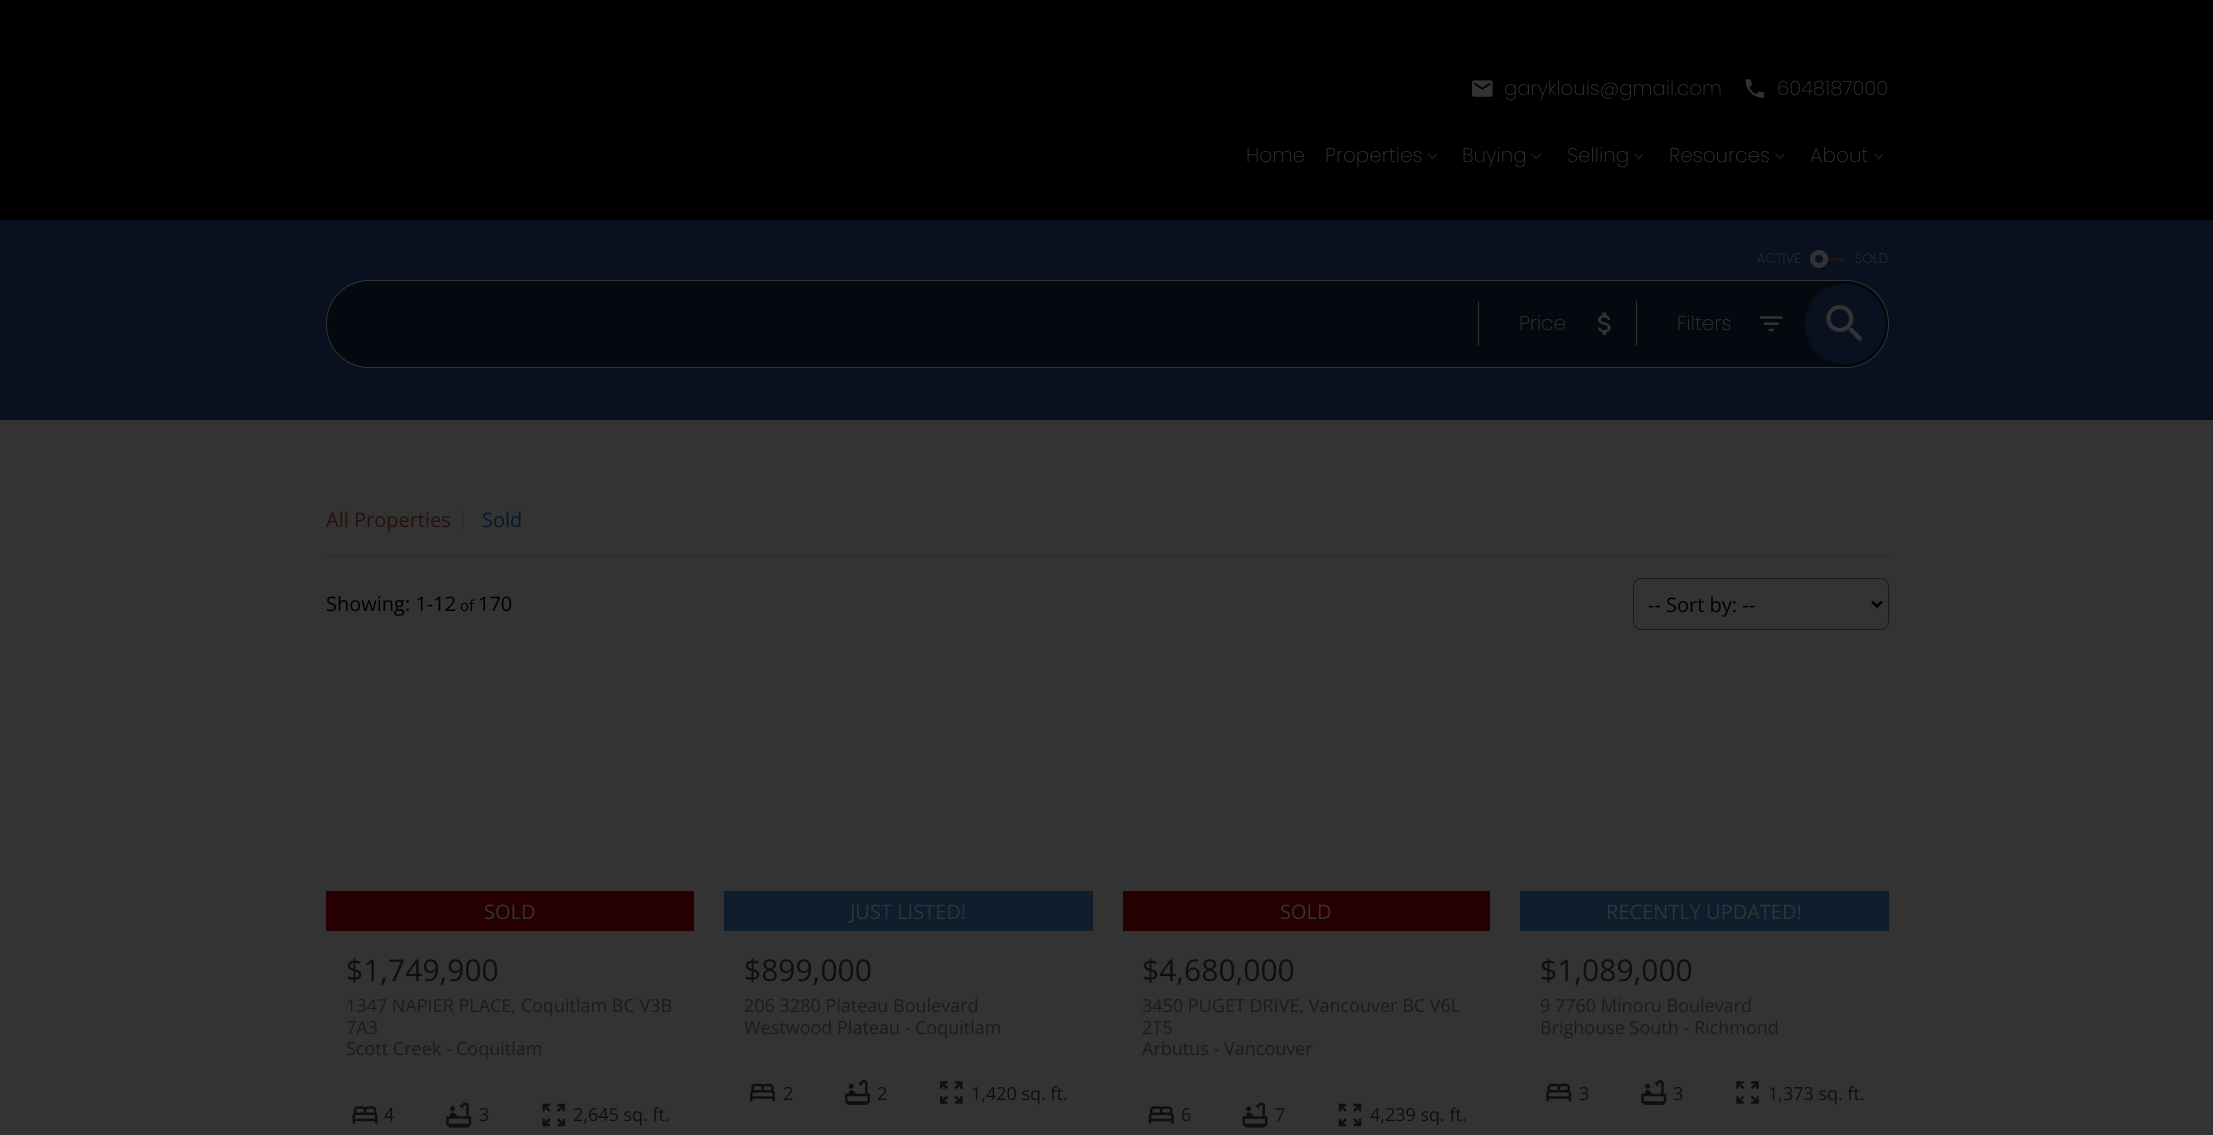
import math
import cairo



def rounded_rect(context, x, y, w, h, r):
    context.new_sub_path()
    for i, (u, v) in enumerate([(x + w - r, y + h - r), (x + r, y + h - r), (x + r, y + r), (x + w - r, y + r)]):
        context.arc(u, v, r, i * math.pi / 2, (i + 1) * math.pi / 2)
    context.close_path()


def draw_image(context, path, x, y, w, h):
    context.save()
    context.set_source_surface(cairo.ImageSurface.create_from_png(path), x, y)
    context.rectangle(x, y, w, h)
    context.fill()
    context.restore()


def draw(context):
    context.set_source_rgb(51 / 255, 51 / 255, 51 / 255)
    context.paint()
    context.set_source_rgb(0, 0, 0)
    context.rectangle(0, 0, 2213, 220)
    context.fill()
    draw_image(context, "images/1.png", 1472, 80, 21, 17)
    draw_image(context, "images/2.png", 1745, 79, 20, 19)
    draw_image(context, "images/3.png", 1427, 153, 11, 7)
    draw_image(context, "images/4.png", 1531, 153, 11, 7)
    draw_image(context, "images/5.png", 1633, 153, 11, 7)
    draw_image(context, "images/6.png", 1775, 153, 10, 7)
    draw_image(context, "images/5.png", 1873, 153, 11, 7)
    context.set_source_rgb(9 / 255, 17 / 255, 32 / 255)
    context.rectangle(0, 220, 2213, 200)
    context.fill()
    context.arc(1819, 259, 6.5, 0, 2 * math.pi)
    context.set_source_rgb(51 / 255, 51 / 255, 51 / 255)
    context.set_line_width(5)
    context.stroke()
    context.set_source_rgb(24 / 255, 24 / 255, 24 / 255)
    context.new_path()
    context.move_to(1828, 258)
    context.line_to(1843.5, 258)
    context.curve_to(1844.5, 258, 1845, 258.5, 1845, 259.5)
    context.curve_to(1845, 260.5, 1844.5, 261, 1843.5, 261)
    context.line_to(1828, 261)
    context.close_path()
    context.fill()
    context.set_source_rgb(4 / 255, 9 / 255, 16 / 255)
    rounded_rect(context, 326.5, 280.5, 1562, 87, 42.5)
    context.fill_preserve()
    context.set_source_rgb(51 / 255, 51 / 255, 51 / 255)
    context.set_line_width(1)
    context.stroke()
    draw_image(context, "images/7.png", 1597, 312, 14, 23)
    context.rectangle(1478, 301, 1, 45)
    context.fill()
    draw_image(context, "images/8.png", 1760, 316, 23, 16)
    context.rectangle(1636, 301, 1, 45)
    context.fill()
    context.set_source_rgb(9 / 255, 17 / 255, 32 / 255)
    context.arc(1845, 324, 40, 0, 2 * math.pi)
    context.fill()
    draw_image(context, "images/9.png", 1826, 305, 37, 37)
    context.set_source_rgb(44 / 255, 44 / 255, 44 / 255)
    context.rectangle(463, 510, 1, 20)
    context.fill()
    context.rectangle(326, 555, 1563, 1)
    context.fill()
    rounded_rect(context, 1633.5, 578.5, 255, 51, 7.5)
    context.set_source_rgb(27 / 255, 27 / 255, 27 / 255)
    context.stroke()
    context.new_path()
    context.move_to(1872, 601.5)
    context.line_to(1877, 606.5)
    context.line_to(1882, 601.5)
    context.set_source_rgb(0, 0, 0)
    context.set_line_width(2.5)
    context.stroke()
    context.set_source_rgb(38 / 255, 0, 0)
    context.rectangle(326, 891, 368, 40)
    context.fill()
    draw_image(context, "images/10.png", 352, 1106, 26, 18)
    draw_image(context, "images/11.png", 446, 1102, 26, 26)
    draw_image(context, "images/12.png", 542, 1103, 23, 24)
    context.set_source_rgb(15 / 255, 29 / 255, 45 / 255)
    context.rectangle(724, 891, 369, 40)
    context.fill()
    draw_image(context, "images/13.png", 750, 1083, 25, 19)
    draw_image(context, "images/14.png", 845, 1080, 25, 25)
    draw_image(context, "images/15.png", 940, 1081, 23, 23)
    context.set_source_rgb(38 / 255, 0, 0)
    context.rectangle(1123, 891, 367, 40)
    context.fill()
    draw_image(context, "images/16.png", 1148, 1106, 26, 18)
    draw_image(context, "images/17.png", 1242, 1102, 26, 26)
    draw_image(context, "images/18.png", 1338, 1103, 24, 24)
    context.set_source_rgb(15 / 255, 29 / 255, 45 / 255)
    context.rectangle(1520, 891, 369, 40)
    context.fill()
    draw_image(context, "images/19.png", 1546, 1083, 26, 19)
    draw_image(context, "images/20.png", 1641, 1080, 26, 25)
    draw_image(context, "images/21.png", 1736, 1081, 23, 23)
    context.select_font_face("Poppins ExtraLight")
    context.set_font_size(19.75)
    context.set_source_rgb(51 / 255, 51 / 255, 51 / 255)
    context.move_to(1504, 95)
    context.show_text("garyklouis@gmail.com")
    context.move_to(1777, 95)
    context.show_text("6048187000")
    context.set_font_size(20)
    context.move_to(1246, 162)
    context.show_text("Home")
    context.move_to(1325, 162)
    context.show_text("Properties")
    context.move_to(1462, 162)
    context.show_text("Buying")
    context.move_to(1567, 162)
    context.show_text("Selling")
    context.move_to(1669, 162)
    context.show_text("Resources")
    context.move_to(1810, 162)
    context.show_text("About")
    context.set_font_size(13.5)
    context.move_to(1757, 263)
    context.show_text("ACTIVE")
    context.move_to(1855, 263)
    context.show_text("SOLD")
    context.set_font_size(20)
    context.move_to(1519, 330)
    context.show_text("Price")
    context.move_to(1677, 330)
    context.show_text("Filters")
    context.select_font_face("Open Sans")
    context.set_source_rgb(41 / 255, 14 / 255, 14 / 255)
    context.move_to(326, 527)
    context.show_text("All Properties")
    context.set_source_rgb(0, 25 / 255, 51 / 255)
    context.move_to(482, 527)
    context.show_text("Sold")
    context.set_source_rgb(0, 0, 0)
    context.move_to(326, 611)
    context.show_text("Showing: 1-12")
    context.set_font_size(15)
    context.move_to(460, 611)
    context.show_text("of")
    context.set_font_size(20)
    context.move_to(478, 611)
    context.show_text("170")
    context.move_to(1648, 612)
    context.show_text("-- Sort by: --")
    context.set_source_rgb(51 / 255, 51 / 255, 51 / 255)
    context.move_to(484, 919)
    context.show_text("SOLD")
    context.set_font_size(30)
    context.set_source_rgb(15 / 255, 15 / 255, 15 / 255)
    context.move_to(346, 981)
    context.show_text("$1,749,900")
    context.set_font_size(18)
    context.set_source_rgb(27 / 255, 27 / 255, 27 / 255)
    context.move_to(346, 1012)
    context.show_text("1347 NAPIER PLACE, Coquitlam BC V3B")
    context.move_to(346, 1034)
    context.show_text("7A3")
    context.move_to(346, 1055)
    context.show_text("Scott Creek -")
    context.move_to(456, 1055)
    context.show_text("Coquitlam")
    context.set_source_rgb(15 / 255, 15 / 255, 15 / 255)
    context.move_to(384, 1121)
    context.show_text("4")
    context.move_to(479, 1121)
    context.show_text("3")
    context.move_to(573, 1121)
    context.show_text("2,645 sq. ft.")
    context.set_font_size(20)
    context.set_source_rgb(51 / 255, 51 / 255, 51 / 255)
    context.move_to(850, 919)
    context.show_text("JUST LISTED!")
    context.set_font_size(30)
    context.set_source_rgb(15 / 255, 15 / 255, 15 / 255)
    context.move_to(744, 981)
    context.show_text("$899,000")
    context.set_font_size(18)
    context.set_source_rgb(27 / 255, 27 / 255, 27 / 255)
    context.move_to(744, 1012)
    context.show_text("206 3280 Plateau Boulevard")
    context.move_to(744, 1034)
    context.show_text("Westwood Plateau -")
    context.move_to(915, 1034)
    context.show_text("Coquitlam")
    context.set_source_rgb(15 / 255, 15 / 255, 15 / 255)
    context.move_to(783, 1100)
    context.show_text("2")
    context.move_to(877, 1100)
    context.show_text("2")
    context.move_to(971, 1100)
    context.show_text("1,420 sq. ft.")
    context.set_font_size(20)
    context.set_source_rgb(51 / 255, 51 / 255, 51 / 255)
    context.move_to(1280, 919)
    context.show_text("SOLD")
    context.set_font_size(30)
    context.set_source_rgb(15 / 255, 15 / 255, 15 / 255)
    context.move_to(1142, 981)
    context.show_text("$4,680,000")
    context.set_font_size(18)
    context.set_source_rgb(27 / 255, 27 / 255, 27 / 255)
    context.move_to(1142, 1012)
    context.show_text("3450 PUGET DRIVE, Vancouver BC V6L")
    context.move_to(1142, 1034)
    context.show_text("2T5")
    context.move_to(1142, 1055)
    context.show_text("Arbutus -")
    context.move_to(1224, 1055)
    context.show_text("Vancouver")
    context.set_source_rgb(15 / 255, 15 / 255, 15 / 255)
    context.move_to(1181, 1121)
    context.show_text("6")
    context.move_to(1275, 1121)
    context.show_text("7")
    context.move_to(1370, 1121)
    context.show_text("4,239 sq. ft.")
    context.set_font_size(20)
    context.set_source_rgb(51 / 255, 51 / 255, 51 / 255)
    context.move_to(1606, 919)
    context.show_text("RECENTLY UPDATED!")
    context.set_font_size(30)
    context.set_source_rgb(15 / 255, 15 / 255, 15 / 255)
    context.move_to(1540, 981)
    context.show_text("$1,089,000")
    context.set_font_size(18)
    context.set_source_rgb(27 / 255, 27 / 255, 27 / 255)
    context.move_to(1540, 1012)
    context.show_text("9 7760 Minoru Boulevard")
    context.move_to(1540, 1034)
    context.show_text("Brighouse South -")
    context.move_to(1694, 1034)
    context.show_text("Richmond")
    context.set_source_rgb(15 / 255, 15 / 255, 15 / 255)
    context.move_to(1579, 1100)
    context.show_text("3")
    context.move_to(1673, 1100)
    context.show_text("3")
    context.move_to(1768, 1100)
    context.show_text("1,373 sq. ft.")


surface = cairo.ImageSurface(cairo.Format.RGB24, 2213, 1135)
context = cairo.Context(surface)
options = cairo.FontOptions()
options.set_hint_metrics(cairo.HintMetrics.OFF)
options.set_hint_style(cairo.HintStyle.NONE)
context.set_font_options(options)
context.set_miter_limit(4)
draw(context)
surface.write_to_png("out.png")
